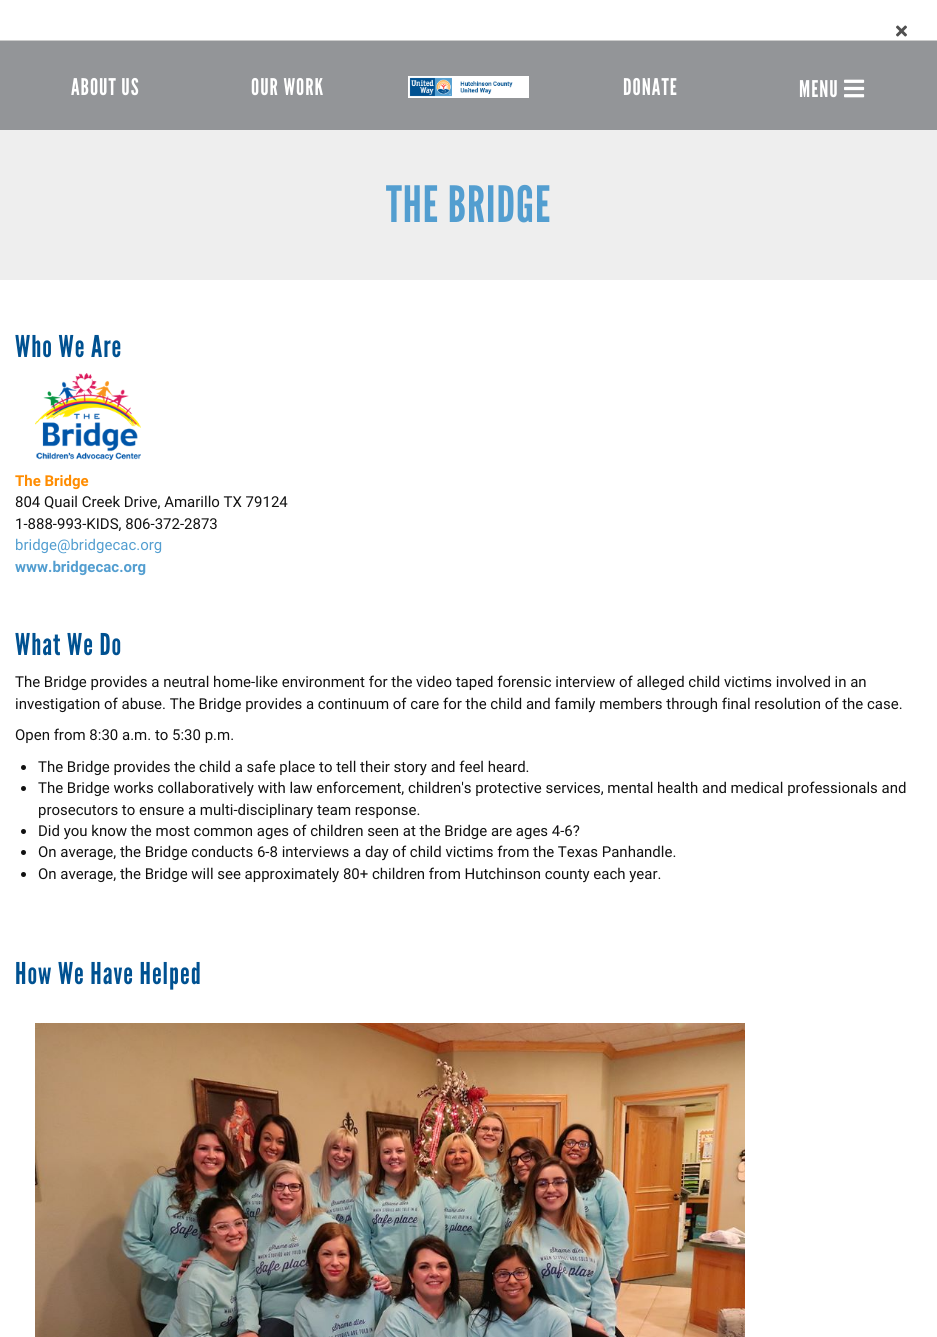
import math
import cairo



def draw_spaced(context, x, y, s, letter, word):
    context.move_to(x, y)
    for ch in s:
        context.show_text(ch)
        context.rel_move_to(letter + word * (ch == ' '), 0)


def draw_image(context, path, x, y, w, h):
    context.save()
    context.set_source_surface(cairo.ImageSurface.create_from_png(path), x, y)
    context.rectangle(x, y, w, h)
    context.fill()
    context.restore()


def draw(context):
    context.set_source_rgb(1, 1, 1)
    context.paint()
    context.set_source_rgb(204 / 255, 204 / 255, 204 / 255)
    context.rectangle(0, 40, 937, 1)
    context.fill()
    draw_image(context, "images/1.png", 896, 25, 11, 12)
    context.set_source_rgb(147 / 255, 149 / 255, 152 / 255)
    context.rectangle(0, 41, 937, 89)
    context.fill()
    draw_image(context, "images/2.png", 408, 76, 121, 22)
    draw_image(context, "images/3.png", 844, 79, 21, 19)
    context.set_source_rgb(238 / 255, 238 / 255, 238 / 255)
    context.rectangle(0, 130, 937, 150)
    context.fill()
    draw_image(context, "images/4.png", 35, 373, 106, 87)
    context.set_source_rgb(17 / 255, 17 / 255, 17 / 255)
    context.arc(23.5, 767.5, 2.5, 0, 2 * math.pi)
    context.fill()
    context.arc(23.5, 788.5, 2.5, 0, 2 * math.pi)
    context.fill()
    context.arc(23.5, 831.5, 2.5, 0, 2 * math.pi)
    context.fill()
    context.arc(23.5, 852.5, 2.5, 0, 2 * math.pi)
    context.fill()
    context.arc(23.5, 874.5, 2.5, 0, 2 * math.pi)
    context.fill()
    draw_image(context, "images/5.png", 35, 1023, 710, 314)
    context.select_font_face("League Gothic")
    context.set_font_size(23)
    context.set_source_rgb(1, 1, 1)
    draw_spaced(context, 71, 95, "ABOUT US", 1, 0)
    draw_spaced(context, 251, 95, "OUR WORK", 1, 0)
    draw_spaced(context, 623, 95, "DONATE", 1, 0)
    draw_spaced(context, 799, 97, "MENU", 1, 0)
    context.set_font_size(50)
    context.set_source_rgb(83 / 255, 158 / 255, 208 / 255)
    draw_spaced(context, 386, 222, "THE BRIDGE", 1, 0)
    context.set_font_size(30)
    context.set_source_rgb(0, 81 / 255, 145 / 255)
    draw_spaced(context, 15, 357, "Who We Are", 1, 0)
    context.select_font_face("Roboto", cairo.FontSlant.NORMAL, cairo.FontWeight.BOLD)
    context.set_font_size(15)
    context.set_source_rgb(1, 140 / 255, 0)
    context.move_to(15, 486)
    context.show_text("The Bridge")
    context.select_font_face("Roboto")
    context.set_source_rgb(17 / 255, 17 / 255, 17 / 255)
    context.move_to(15, 507)
    context.show_text("804 Quail Creek Drive, Amarillo TX 79124")
    context.move_to(15, 529)
    context.show_text("1-888-993-KIDS, 806-372-2873")
    context.set_source_rgb(83 / 255, 158 / 255, 208 / 255)
    context.move_to(15, 550)
    context.show_text("bridge@bridgecac.org")
    context.select_font_face("Roboto", cairo.FontSlant.NORMAL, cairo.FontWeight.BOLD)
    context.move_to(15, 572)
    context.show_text("www.bridgecac.org")
    context.select_font_face("League Gothic")
    context.set_font_size(30)
    context.set_source_rgb(0, 81 / 255, 145 / 255)
    draw_spaced(context, 15, 655, "What We Do", 1, 0)
    context.select_font_face("Roboto")
    context.set_font_size(15)
    context.set_source_rgb(17 / 255, 17 / 255, 17 / 255)
    context.move_to(15, 687)
    context.show_text("The Bridge provides a neutral home-like environment for the video taped forensic interview of alleged child victims involved in an")
    context.move_to(15, 709)
    context.show_text("investigation of abuse. The Bridge provides a continuum of care for the child and family members through final resolution of the case.")
    context.move_to(15, 740)
    context.show_text("Open from 8:30 a.m. to 5:30 p.m.")
    context.move_to(38, 772)
    context.show_text("The Bridge provides the child a safe place to tell their story and feel heard.")
    context.move_to(38, 793)
    context.show_text("The Bridge works collaboratively with law enforcement, children's protective services, mental health and medical professionals and")
    context.move_to(38, 815)
    context.show_text("prosecutors to ensure a multi-disciplinary team response.")
    context.move_to(38, 836)
    context.show_text("Did you know the most common ages of children seen at the Bridge are ages 4-6?")
    context.move_to(38, 857)
    context.show_text("On average, the Bridge conducts 6-8 interviews a day of child victims from the Texas Panhandle.")
    context.move_to(38, 879)
    context.show_text("On average, the Bridge will see approximately 80+ children from Hutchinson county each year.")
    context.select_font_face("League Gothic")
    context.set_font_size(30)
    context.set_source_rgb(0, 81 / 255, 145 / 255)
    draw_spaced(context, 15, 984, "How We Have Helped", 1, 0)


surface = cairo.ImageSurface(cairo.Format.RGB24, 937, 1337)
context = cairo.Context(surface)
options = cairo.FontOptions()
options.set_hint_metrics(cairo.HintMetrics.OFF)
options.set_hint_style(cairo.HintStyle.NONE)
context.set_font_options(options)
context.set_miter_limit(4)
draw(context)
surface.write_to_png("out.png")
